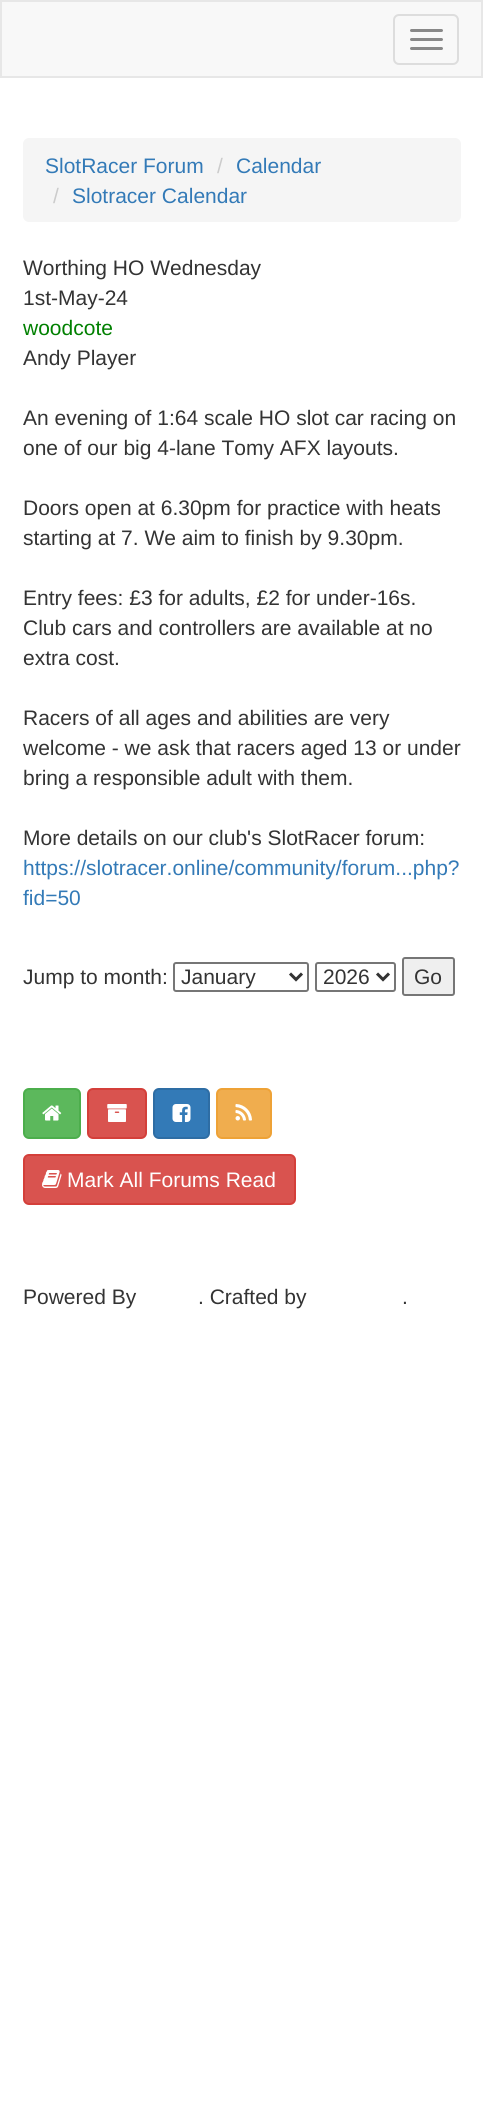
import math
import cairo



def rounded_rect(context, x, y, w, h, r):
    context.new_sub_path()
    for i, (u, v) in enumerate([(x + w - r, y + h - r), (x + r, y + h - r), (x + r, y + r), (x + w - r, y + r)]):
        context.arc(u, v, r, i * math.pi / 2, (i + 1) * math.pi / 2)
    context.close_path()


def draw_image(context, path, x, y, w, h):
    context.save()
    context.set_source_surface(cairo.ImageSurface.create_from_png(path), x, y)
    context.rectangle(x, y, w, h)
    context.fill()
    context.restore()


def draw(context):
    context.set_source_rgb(1, 1, 1)
    context.paint()
    context.set_source_rgb(248 / 255, 248 / 255, 248 / 255)
    context.rectangle(1, 1, 481, 76)
    context.fill_preserve()
    context.set_source_rgb(231 / 255, 231 / 255, 231 / 255)
    context.stroke()
    rounded_rect(context, 394, 15, 64, 49, 5)
    context.set_source_rgb(221 / 255, 221 / 255, 221 / 255)
    context.stroke()
    context.set_source_rgb(136 / 255, 136 / 255, 136 / 255)
    rounded_rect(context, 410, 29, 33, 3, 1.5)
    context.fill()
    rounded_rect(context, 410, 38, 33, 3, 1.5)
    context.fill()
    rounded_rect(context, 410, 47, 33, 3, 1.5)
    context.fill()
    context.set_source_rgb(245 / 255, 245 / 255, 245 / 255)
    rounded_rect(context, 23, 138, 438, 84, 6)
    context.fill()
    rounded_rect(context, 174, 963, 134, 28, 2)
    context.set_source_rgb(118 / 255, 118 / 255, 118 / 255)
    context.stroke()
    context.new_path()
    context.move_to(290, 973.5)
    context.line_to(296, 979.5)
    context.line_to(302, 973.5)
    context.set_source_rgb(51 / 255, 51 / 255, 51 / 255)
    context.set_line_width(3)
    context.stroke()
    rounded_rect(context, 316, 963, 79, 28, 2)
    context.set_source_rgb(118 / 255, 118 / 255, 118 / 255)
    context.set_line_width(2)
    context.stroke()
    context.new_path()
    context.move_to(377, 973.5)
    context.line_to(383, 979.5)
    context.line_to(389, 973.5)
    context.set_source_rgb(51 / 255, 51 / 255, 51 / 255)
    context.set_line_width(3)
    context.stroke()
    context.set_source_rgb(239 / 255, 239 / 255, 239 / 255)
    rounded_rect(context, 403, 958, 51, 37, 2)
    context.fill_preserve()
    context.set_source_rgb(118 / 255, 118 / 255, 118 / 255)
    context.set_line_width(2)
    context.stroke()
    context.set_source_rgb(92 / 255, 184 / 255, 92 / 255)
    rounded_rect(context, 24, 1089, 56, 49, 5)
    context.fill_preserve()
    context.set_source_rgb(76 / 255, 174 / 255, 76 / 255)
    context.stroke()
    draw_image(context, "images/1.png", 42, 1105, 20, 16)
    context.set_source_rgb(217 / 255, 83 / 255, 79 / 255)
    rounded_rect(context, 88, 1089, 58, 49, 5)
    context.fill_preserve()
    context.set_source_rgb(212 / 255, 63 / 255, 58 / 255)
    context.stroke()
    draw_image(context, "images/2.png", 107, 1104, 20, 18)
    context.set_source_rgb(51 / 255, 122 / 255, 183 / 255)
    rounded_rect(context, 154, 1089, 55, 49, 5)
    context.fill_preserve()
    context.set_source_rgb(46 / 255, 109 / 255, 164 / 255)
    context.stroke()
    draw_image(context, "images/3.png", 172, 1104, 19, 18)
    context.set_source_rgb(240 / 255, 173 / 255, 78 / 255)
    rounded_rect(context, 217, 1089, 54, 49, 5)
    context.fill_preserve()
    context.set_source_rgb(238 / 255, 162 / 255, 54 / 255)
    context.stroke()
    draw_image(context, "images/4.png", 235, 1104, 17, 17)
    context.set_source_rgb(217 / 255, 83 / 255, 79 / 255)
    rounded_rect(context, 24, 1155, 271, 49, 5)
    context.fill_preserve()
    context.set_source_rgb(212 / 255, 63 / 255, 58 / 255)
    context.stroke()
    draw_image(context, "images/5.png", 42, 1170, 20, 18)
    context.select_font_face("Liberation Sans")
    context.set_font_size(21)
    context.set_source_rgb(51 / 255, 122 / 255, 183 / 255)
    context.move_to(45, 173)
    context.show_text("SlotRacer Forum")
    context.set_source_rgb(204 / 255, 204 / 255, 204 / 255)
    context.move_to(217, 173)
    context.show_text("/")
    context.set_source_rgb(51 / 255, 122 / 255, 183 / 255)
    context.move_to(236, 173)
    context.show_text("Calendar")
    context.set_source_rgb(204 / 255, 204 / 255, 204 / 255)
    context.move_to(53, 203)
    context.show_text("/")
    context.set_source_rgb(51 / 255, 122 / 255, 183 / 255)
    context.move_to(72, 203)
    context.show_text("Slotracer Calendar")
    context.set_source_rgb(51 / 255, 51 / 255, 51 / 255)
    context.move_to(23, 275)
    context.show_text("Worthing HO Wednesday")
    context.move_to(23, 305)
    context.show_text("1st-May-24")
    context.set_source_rgb(0, 128 / 255, 0)
    context.move_to(23, 335)
    context.show_text("woodcote")
    context.set_source_rgb(51 / 255, 51 / 255, 51 / 255)
    context.move_to(23, 365)
    context.show_text("Andy Player")
    context.move_to(23, 425)
    context.show_text("An evening of 1:64 scale HO slot car racing on")
    context.move_to(23, 455)
    context.show_text("one of our big 4-lane Tomy AFX layouts.")
    context.move_to(23, 515)
    context.show_text("Doors open at 6.30pm for practice with heats")
    context.move_to(23, 545)
    context.show_text("starting at 7. We aim to finish by 9.30pm.")
    context.move_to(23, 605)
    context.show_text("Entry fees: £3 for adults, £2 for under-16s.")
    context.move_to(23, 635)
    context.show_text("Club cars and controllers are available at no")
    context.move_to(23, 665)
    context.show_text("extra cost.")
    context.move_to(23, 725)
    context.show_text("Racers of all ages and abilities are very")
    context.move_to(23, 755)
    context.show_text("welcome - we ask that racers aged 13 or under")
    context.move_to(23, 785)
    context.show_text("bring a responsible adult with them.")
    context.move_to(23, 845)
    context.show_text("More details on our club's SlotRacer forum:")
    context.set_source_rgb(51 / 255, 122 / 255, 183 / 255)
    context.move_to(23, 875)
    context.show_text("https://slotracer.online/community/forum...php?")
    context.move_to(23, 905)
    context.show_text("fid=50")
    context.set_source_rgb(51 / 255, 51 / 255, 51 / 255)
    context.move_to(23, 984)
    context.show_text("Jump to month:")
    context.move_to(181, 984)
    context.show_text("January")
    context.move_to(323, 984)
    context.show_text("2026")
    context.move_to(414, 984)
    context.show_text("Go")
    context.set_source_rgb(1, 1, 1)
    context.move_to(67, 1187)
    context.show_text("Mark All Forums Read")
    context.set_source_rgb(51 / 255, 51 / 255, 51 / 255)
    context.move_to(23, 1304)
    context.show_text("Powered By")
    context.move_to(198, 1304)
    context.show_text(". Crafted by")
    context.move_to(402, 1304)
    context.show_text(".")


surface = cairo.ImageSurface(cairo.Format.RGB24, 483, 2119)
context = cairo.Context(surface)
options = cairo.FontOptions()
options.set_hint_metrics(cairo.HintMetrics.OFF)
options.set_hint_style(cairo.HintStyle.NONE)
context.set_font_options(options)
context.set_miter_limit(4)
draw(context)
surface.write_to_png("out.png")
